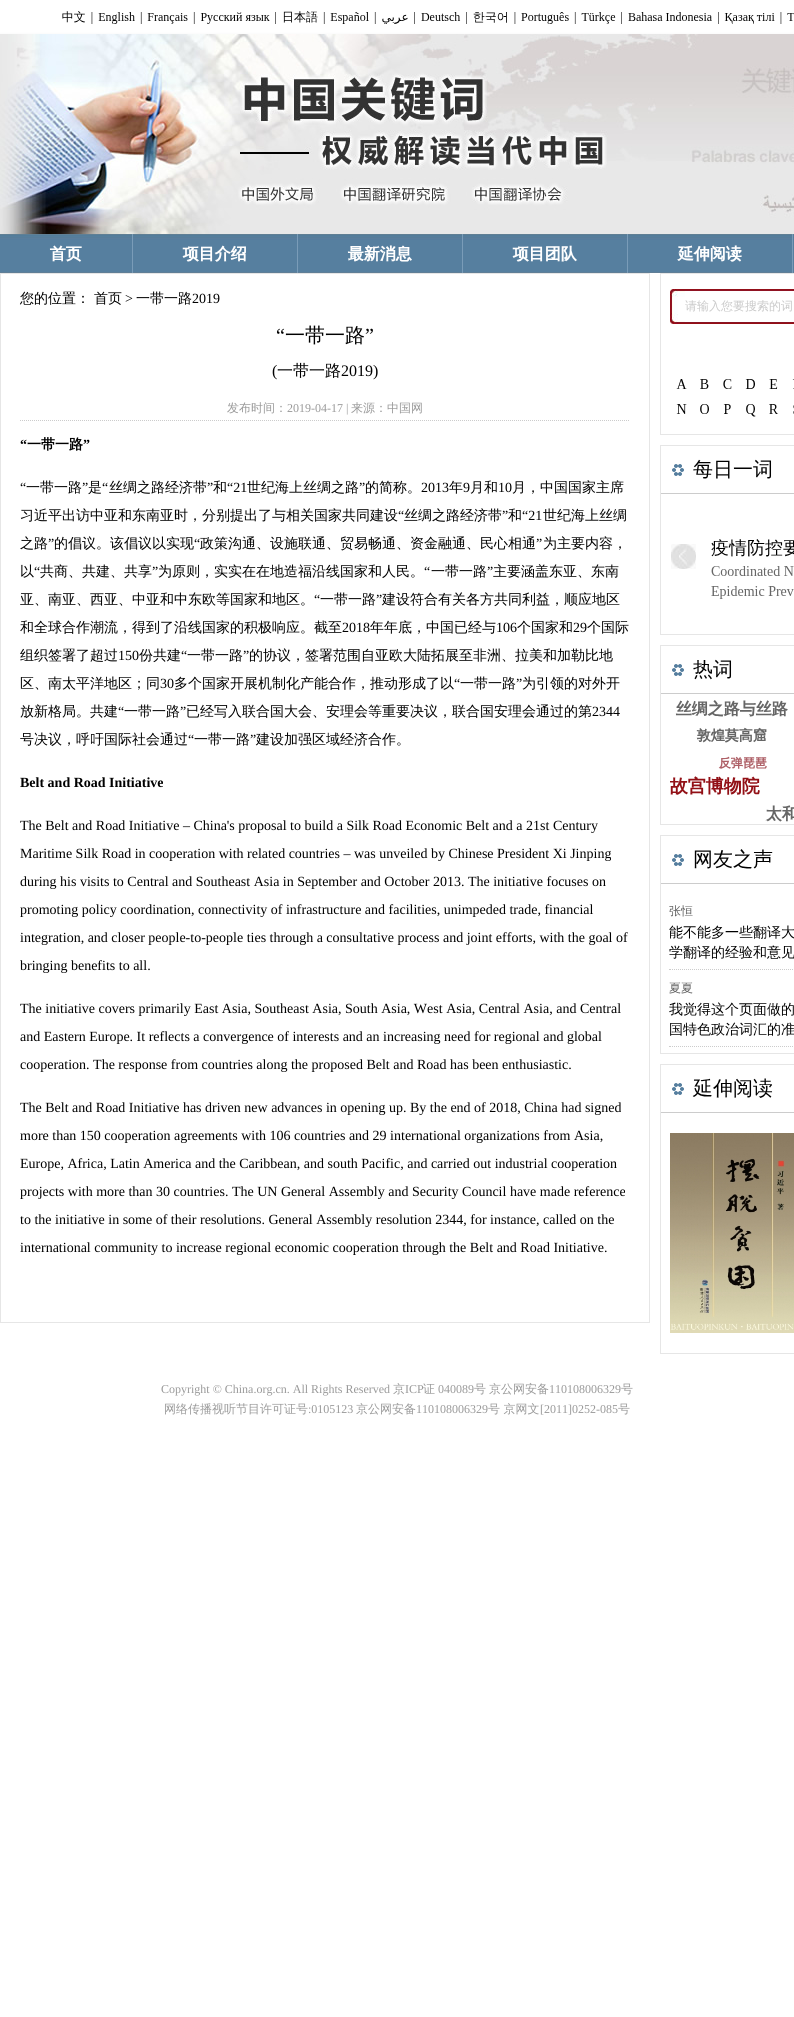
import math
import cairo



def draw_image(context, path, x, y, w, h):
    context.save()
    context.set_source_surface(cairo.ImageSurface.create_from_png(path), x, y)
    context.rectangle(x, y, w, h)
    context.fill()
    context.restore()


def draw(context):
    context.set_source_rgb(1, 1, 1)
    context.paint()
    draw_image(context, "images/1.png", 0, 11, 794, 262)
    context.rectangle(0.5, 273.5, 649, 1049)
    context.set_source_rgb(230 / 255, 230 / 255, 230 / 255)
    context.set_line_width(1)
    context.stroke()
    context.new_path()
    context.move_to(20, 420.5)
    context.line_to(630, 420.5)
    context.set_source_rgb(204 / 255, 204 / 255, 204 / 255)
    context.set_dash([1, 1])
    context.stroke()
    draw_image(context, "images/2.png", 660, 273, 134, 1081)
    context.select_font_face("WenQuanYi Zen Hei Medium")
    context.set_font_size(14)
    context.set_source_rgb(0, 0, 0)
    context.move_to(20, 303)
    context.show_text("您的位置：")
    context.move_to(94, 303)
    context.show_text("首页")
    context.select_font_face("Liberation Serif")
    context.move_to(125, 303)
    context.show_text(">")
    context.select_font_face("WenQuanYi Zen Hei Medium")
    context.move_to(136, 303)
    context.show_text("一带一路")
    context.select_font_face("Liberation Serif")
    context.move_to(192, 303)
    context.show_text("2019")
    context.set_font_size(20)
    context.move_to(276, 342)
    context.show_text("“")
    context.select_font_face("WenQuanYi Zen Hei Medium")
    context.move_to(285, 342)
    context.show_text("一带一路")
    context.select_font_face("Liberation Serif")
    context.move_to(365, 342)
    context.show_text("”")
    context.set_font_size(16)
    context.move_to(272, 376)
    context.show_text("(")
    context.select_font_face("WenQuanYi Zen Hei Medium")
    context.move_to(277, 376)
    context.show_text("一带一路")
    context.select_font_face("Liberation Serif")
    context.move_to(341, 376)
    context.show_text("2019)")
    context.select_font_face("WenQuanYi Zen Hei Medium")
    context.set_font_size(12)
    context.set_source_rgb(153 / 255, 153 / 255, 153 / 255)
    context.move_to(227, 412)
    context.show_text("发布时间：")
    context.select_font_face("Liberation Serif")
    context.move_to(287, 412)
    context.show_text("2019-04-17 |")
    context.select_font_face("WenQuanYi Zen Hei Medium")
    context.move_to(351, 412)
    context.show_text("来源：中国网")
    context.select_font_face("Liberation Serif", cairo.FontSlant.NORMAL, cairo.FontWeight.BOLD)
    context.set_font_size(14)
    context.set_source_rgb(0, 0, 0)
    context.move_to(20, 449)
    context.show_text("“")
    context.select_font_face("WenQuanYi Zen Hei", cairo.FontSlant.NORMAL, cairo.FontWeight.BOLD)
    context.move_to(27, 449)
    context.show_text("一带一路")
    context.select_font_face("Liberation Serif", cairo.FontSlant.NORMAL, cairo.FontWeight.BOLD)
    context.move_to(83, 449)
    context.show_text("”")
    context.select_font_face("Liberation Serif")
    context.move_to(20, 492)
    context.show_text("“")
    context.select_font_face("WenQuanYi Zen Hei Medium")
    context.move_to(26, 492)
    context.show_text("一带一路")
    context.select_font_face("Liberation Serif")
    context.move_to(82, 492)
    context.show_text("”")
    context.select_font_face("WenQuanYi Zen Hei Medium")
    context.move_to(88, 492)
    context.show_text("是")
    context.select_font_face("Liberation Serif")
    context.move_to(102, 492)
    context.show_text("“")
    context.select_font_face("WenQuanYi Zen Hei Medium")
    context.move_to(109, 492)
    context.show_text("丝绸之路经济带")
    context.select_font_face("Liberation Serif")
    context.move_to(207, 492)
    context.show_text("”")
    context.select_font_face("WenQuanYi Zen Hei Medium")
    context.move_to(213, 492)
    context.show_text("和")
    context.select_font_face("Liberation Serif")
    context.move_to(227, 492)
    context.show_text("“21")
    context.select_font_face("WenQuanYi Zen Hei Medium")
    context.move_to(247, 492)
    context.show_text("世纪海上丝绸之路")
    context.select_font_face("Liberation Serif")
    context.move_to(359, 492)
    context.show_text("”")
    context.select_font_face("WenQuanYi Zen Hei Medium")
    context.move_to(365, 492)
    context.show_text("的简称。")
    context.select_font_face("Liberation Serif")
    context.move_to(421, 492)
    context.show_text("2013")
    context.select_font_face("WenQuanYi Zen Hei Medium")
    context.move_to(449, 492)
    context.show_text("年")
    context.select_font_face("Liberation Serif")
    context.move_to(463, 492)
    context.show_text("9")
    context.select_font_face("WenQuanYi Zen Hei Medium")
    context.move_to(470, 492)
    context.show_text("月和")
    context.select_font_face("Liberation Serif")
    context.move_to(498, 492)
    context.show_text("10")
    context.select_font_face("WenQuanYi Zen Hei Medium")
    context.move_to(512, 492)
    context.show_text("月，中国国家主席")
    context.move_to(20, 520)
    context.show_text("习近平出访中亚和东南亚时，分别提出了与相关国家共同建设")
    context.select_font_face("Liberation Serif")
    context.move_to(398, 520)
    context.show_text("“")
    context.select_font_face("WenQuanYi Zen Hei Medium")
    context.move_to(404, 520)
    context.show_text("丝绸之路经济带")
    context.select_font_face("Liberation Serif")
    context.move_to(502, 520)
    context.show_text("”")
    context.select_font_face("WenQuanYi Zen Hei Medium")
    context.move_to(508, 520)
    context.show_text("和")
    context.select_font_face("Liberation Serif")
    context.move_to(522, 520)
    context.show_text("“21")
    context.select_font_face("WenQuanYi Zen Hei Medium")
    context.move_to(543, 520)
    context.show_text("世纪海上丝绸")
    context.move_to(20, 548)
    context.show_text("之路")
    context.select_font_face("Liberation Serif")
    context.move_to(48, 548)
    context.show_text("”")
    context.select_font_face("WenQuanYi Zen Hei Medium")
    context.move_to(54, 548)
    context.show_text("的倡议。该倡议以实现")
    context.select_font_face("Liberation Serif")
    context.move_to(194, 548)
    context.show_text("“")
    context.select_font_face("WenQuanYi Zen Hei Medium")
    context.move_to(200, 548)
    context.show_text("政策沟通、设施联通、贸易畅通、资金融通、民心相通")
    context.select_font_face("Liberation Serif")
    context.move_to(536, 548)
    context.show_text("”")
    context.select_font_face("WenQuanYi Zen Hei Medium")
    context.move_to(543, 548)
    context.show_text("为主要内容，")
    context.move_to(20, 576)
    context.show_text("以")
    context.select_font_face("Liberation Serif")
    context.move_to(34, 576)
    context.show_text("“")
    context.select_font_face("WenQuanYi Zen Hei Medium")
    context.move_to(40, 576)
    context.show_text("共商、共建、共享")
    context.select_font_face("Liberation Serif")
    context.move_to(152, 576)
    context.show_text("”")
    context.select_font_face("WenQuanYi Zen Hei Medium")
    context.move_to(158, 576)
    context.show_text("为原则，实实在在地造福沿线国家和人民。")
    context.select_font_face("Liberation Serif")
    context.move_to(424, 576)
    context.show_text("“")
    context.select_font_face("WenQuanYi Zen Hei Medium")
    context.move_to(431, 576)
    context.show_text("一带一路")
    context.select_font_face("Liberation Serif")
    context.move_to(487, 576)
    context.show_text("”")
    context.select_font_face("WenQuanYi Zen Hei Medium")
    context.move_to(493, 576)
    context.show_text("主要涵盖东亚、东南")
    context.move_to(20, 604)
    context.show_text("亚、南亚、西亚、中亚和中东欧等国家和地区。")
    context.select_font_face("Liberation Serif")
    context.move_to(314, 604)
    context.show_text("“")
    context.select_font_face("WenQuanYi Zen Hei Medium")
    context.move_to(320, 604)
    context.show_text("一带一路")
    context.select_font_face("Liberation Serif")
    context.move_to(376, 604)
    context.show_text("”")
    context.select_font_face("WenQuanYi Zen Hei Medium")
    context.move_to(382, 604)
    context.show_text("建设符合有关各方共同利益，顺应地区")
    context.move_to(20, 632)
    context.show_text("和全球合作潮流，得到了沿线国家的积极响应。截至")
    context.select_font_face("Liberation Serif")
    context.move_to(342, 632)
    context.show_text("2018")
    context.select_font_face("WenQuanYi Zen Hei Medium")
    context.move_to(370, 632)
    context.show_text("年年底，中国已经与")
    context.select_font_face("Liberation Serif")
    context.move_to(496, 632)
    context.show_text("106")
    context.select_font_face("WenQuanYi Zen Hei Medium")
    context.move_to(517, 632)
    context.show_text("个国家和")
    context.select_font_face("Liberation Serif")
    context.move_to(573, 632)
    context.show_text("29")
    context.select_font_face("WenQuanYi Zen Hei Medium")
    context.move_to(587, 632)
    context.show_text("个国际")
    context.move_to(20, 660)
    context.show_text("组织签署了超过")
    context.select_font_face("Liberation Serif")
    context.move_to(118, 660)
    context.show_text("150")
    context.select_font_face("WenQuanYi Zen Hei Medium")
    context.move_to(139, 660)
    context.show_text("份共建")
    context.select_font_face("Liberation Serif")
    context.move_to(181, 660)
    context.show_text("“")
    context.select_font_face("WenQuanYi Zen Hei Medium")
    context.move_to(187, 660)
    context.show_text("一带一路")
    context.select_font_face("Liberation Serif")
    context.move_to(243, 660)
    context.show_text("”")
    context.select_font_face("WenQuanYi Zen Hei Medium")
    context.move_to(249, 660)
    context.show_text("的协议，签署范围自亚欧大陆拓展至非洲、拉美和加勒比地")
    context.move_to(20, 688)
    context.show_text("区、南太平洋地区；同")
    context.select_font_face("Liberation Serif")
    context.move_to(160, 688)
    context.show_text("30")
    context.select_font_face("WenQuanYi Zen Hei Medium")
    context.move_to(174, 688)
    context.show_text("多个国家开展机制化产能合作，推动形成了以")
    context.select_font_face("Liberation Serif")
    context.move_to(454, 688)
    context.show_text("“")
    context.select_font_face("WenQuanYi Zen Hei Medium")
    context.move_to(460, 688)
    context.show_text("一带一路")
    context.select_font_face("Liberation Serif")
    context.move_to(516, 688)
    context.show_text("”")
    context.select_font_face("WenQuanYi Zen Hei Medium")
    context.move_to(522, 688)
    context.show_text("为引领的对外开")
    context.move_to(20, 716)
    context.show_text("放新格局。共建")
    context.select_font_face("Liberation Serif")
    context.move_to(118, 716)
    context.show_text("“")
    context.select_font_face("WenQuanYi Zen Hei Medium")
    context.move_to(124, 716)
    context.show_text("一带一路")
    context.select_font_face("Liberation Serif")
    context.move_to(180, 716)
    context.show_text("”")
    context.select_font_face("WenQuanYi Zen Hei Medium")
    context.move_to(186, 716)
    context.show_text("已经写入联合国大会、安理会等重要决议，联合国安理会通过的第")
    context.select_font_face("Liberation Serif")
    context.move_to(592, 716)
    context.show_text("2344")
    context.select_font_face("WenQuanYi Zen Hei Medium")
    context.move_to(20, 744)
    context.show_text("号决议，呼吁国际社会通过")
    context.select_font_face("Liberation Serif")
    context.move_to(188, 744)
    context.show_text("“")
    context.select_font_face("WenQuanYi Zen Hei Medium")
    context.move_to(194, 744)
    context.show_text("一带一路")
    context.select_font_face("Liberation Serif")
    context.move_to(250, 744)
    context.show_text("”")
    context.select_font_face("WenQuanYi Zen Hei Medium")
    context.move_to(256, 744)
    context.show_text("建设加强区域经济合作。")
    context.select_font_face("Liberation Serif", cairo.FontSlant.NORMAL, cairo.FontWeight.BOLD)
    context.move_to(20, 787)
    context.show_text("Belt and Road Initiative")
    context.select_font_face("Liberation Serif")
    context.move_to(20, 830)
    context.show_text("The Belt and Road Initiative – China's proposal to build a Silk Road Economic Belt and a 21st Century")
    context.move_to(20, 858)
    context.show_text("Maritime Silk Road in cooperation with related countries – was unveiled by Chinese President Xi Jinping")
    context.move_to(20, 886)
    context.show_text("during his visits to Central and Southeast Asia in September and October 2013. The initiative focuses on")
    context.move_to(20, 914)
    context.show_text("promoting policy coordination, connectivity of infrastructure and facilities, unimpeded trade, financial")
    context.move_to(20, 942)
    context.show_text("integration, and closer people-to-people ties through a consultative process and joint efforts, with the goal of")
    context.move_to(20, 970)
    context.show_text("bringing benefits to all.")
    context.move_to(20, 1013)
    context.show_text("The initiative covers primarily East Asia, Southeast Asia, South Asia, West Asia, Central Asia, and Central")
    context.move_to(20, 1041)
    context.show_text("and Eastern Europe. It reflects a convergence of interests and an increasing need for regional and global")
    context.move_to(20, 1069)
    context.show_text("cooperation. The response from countries along the proposed Belt and Road has been enthusiastic.")
    context.move_to(20, 1112)
    context.show_text("The Belt and Road Initiative has driven new advances in opening up. By the end of 2018, China had signed")
    context.move_to(20, 1140)
    context.show_text("more than 150 cooperation agreements with 106 countries and 29 international organizations from Asia,")
    context.move_to(20, 1168)
    context.show_text("Europe, Africa, Latin America and the Caribbean, and south Pacific, and carried out industrial cooperation")
    context.move_to(20, 1196)
    context.show_text("projects with more than 30 countries. The UN General Assembly and Security Council have made reference")
    context.move_to(20, 1224)
    context.show_text("to the initiative in some of their resolutions. General Assembly resolution 2344, for instance, called on the")
    context.move_to(20, 1252)
    context.show_text("international community to increase regional economic cooperation through the Belt and Road Initiative.")
    context.set_font_size(12)
    context.set_source_rgb(153 / 255, 153 / 255, 153 / 255)
    context.move_to(161, 1393)
    context.show_text("Copyright © China.org.cn. All Rights Reserved")
    context.select_font_face("WenQuanYi Zen Hei Medium")
    context.move_to(393, 1393)
    context.show_text("京")
    context.select_font_face("Liberation Serif")
    context.move_to(405, 1393)
    context.show_text("ICP")
    context.select_font_face("WenQuanYi Zen Hei Medium")
    context.move_to(423, 1393)
    context.show_text("证")
    context.select_font_face("Liberation Serif")
    context.move_to(438, 1393)
    context.show_text("040089")
    context.select_font_face("WenQuanYi Zen Hei Medium")
    context.move_to(474, 1393)
    context.show_text("号")
    context.move_to(489, 1393)
    context.show_text("京公网安备")
    context.select_font_face("Liberation Serif")
    context.move_to(549, 1393)
    context.show_text("110108006329")
    context.select_font_face("WenQuanYi Zen Hei Medium")
    context.move_to(621, 1393)
    context.show_text("号")
    context.move_to(164, 1413)
    context.show_text("网络传播视听节目许可证号")
    context.select_font_face("Liberation Serif")
    context.move_to(308, 1413)
    context.show_text(":0105123")
    context.select_font_face("WenQuanYi Zen Hei Medium")
    context.move_to(356, 1413)
    context.show_text("京公网安备")
    context.select_font_face("Liberation Serif")
    context.move_to(416, 1413)
    context.show_text("110108006329")
    context.select_font_face("WenQuanYi Zen Hei Medium")
    context.move_to(488, 1413)
    context.show_text("号 京网文")
    context.select_font_face("Liberation Serif")
    context.move_to(540, 1413)
    context.show_text("[2011]0252-085")
    context.select_font_face("WenQuanYi Zen Hei Medium")
    context.move_to(618, 1413)
    context.show_text("号")


surface = cairo.ImageSurface(cairo.Format.RGB24, 794, 2017)
context = cairo.Context(surface)
options = cairo.FontOptions()
options.set_hint_metrics(cairo.HintMetrics.OFF)
options.set_hint_style(cairo.HintStyle.NONE)
context.set_font_options(options)
context.set_miter_limit(4)
draw(context)
surface.write_to_png("out.png")
